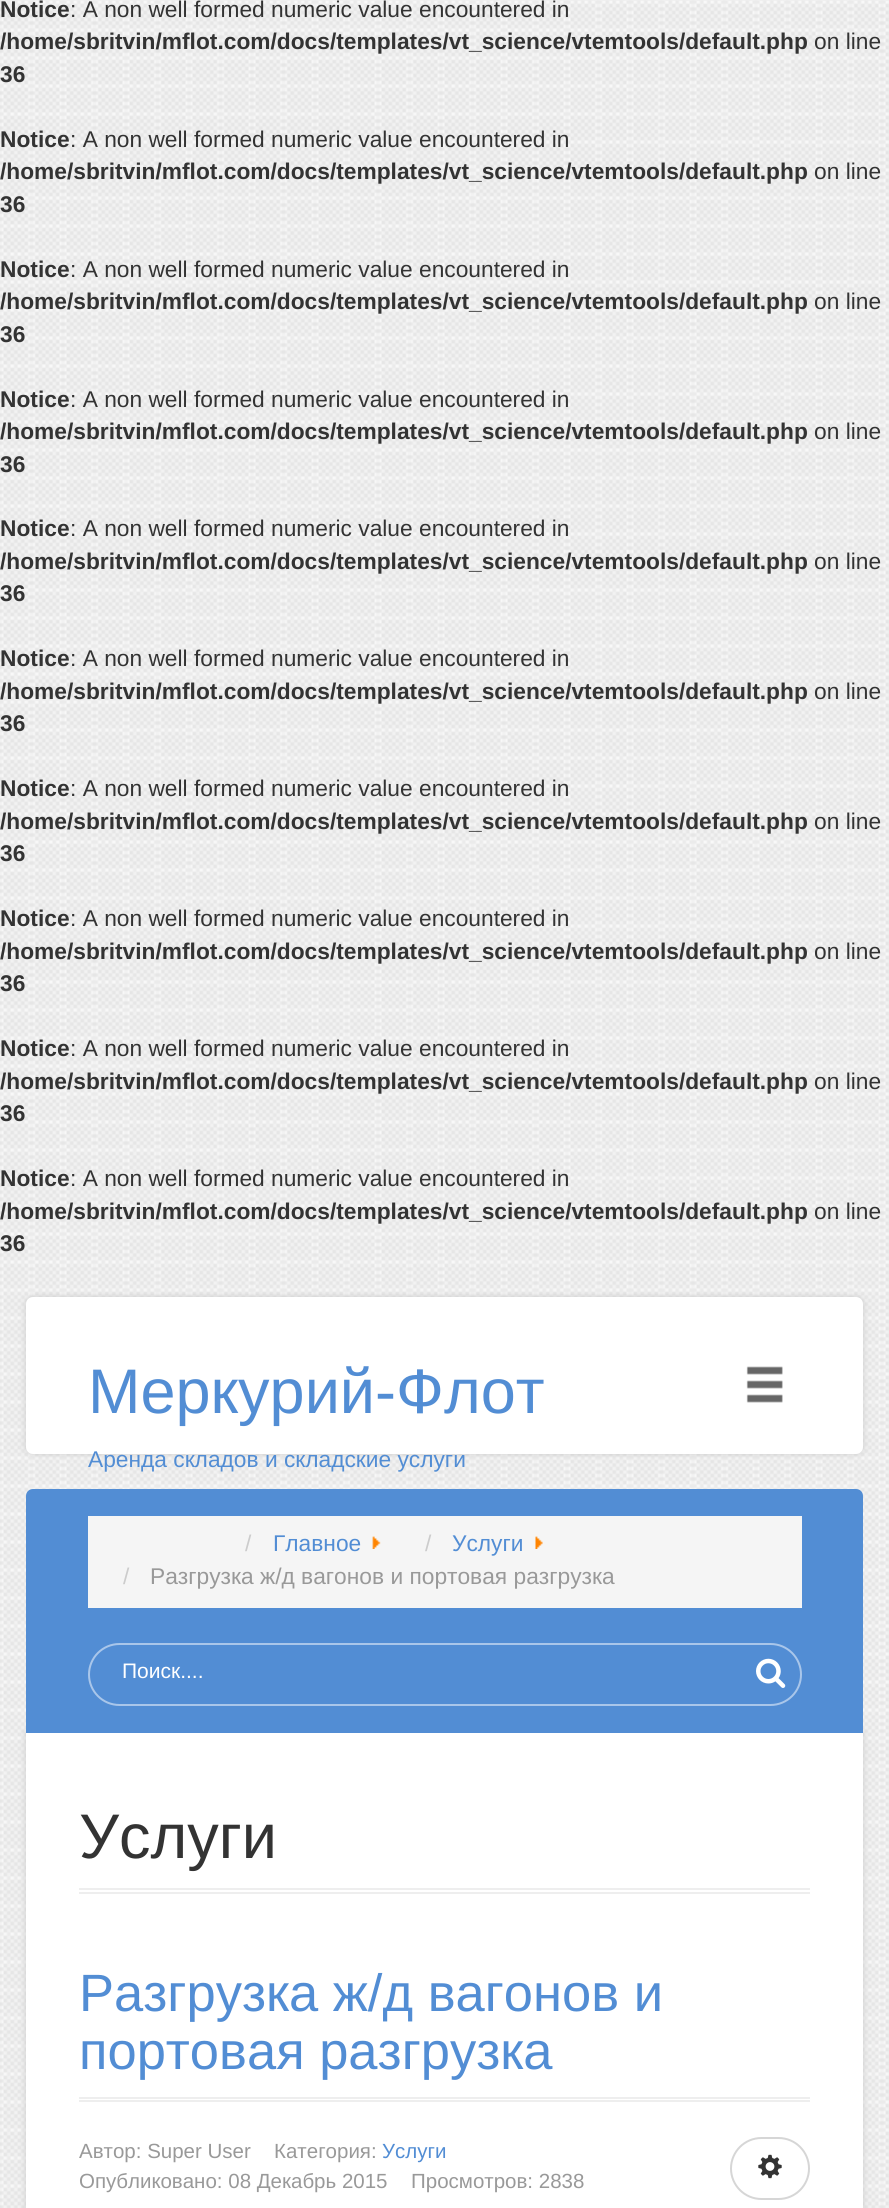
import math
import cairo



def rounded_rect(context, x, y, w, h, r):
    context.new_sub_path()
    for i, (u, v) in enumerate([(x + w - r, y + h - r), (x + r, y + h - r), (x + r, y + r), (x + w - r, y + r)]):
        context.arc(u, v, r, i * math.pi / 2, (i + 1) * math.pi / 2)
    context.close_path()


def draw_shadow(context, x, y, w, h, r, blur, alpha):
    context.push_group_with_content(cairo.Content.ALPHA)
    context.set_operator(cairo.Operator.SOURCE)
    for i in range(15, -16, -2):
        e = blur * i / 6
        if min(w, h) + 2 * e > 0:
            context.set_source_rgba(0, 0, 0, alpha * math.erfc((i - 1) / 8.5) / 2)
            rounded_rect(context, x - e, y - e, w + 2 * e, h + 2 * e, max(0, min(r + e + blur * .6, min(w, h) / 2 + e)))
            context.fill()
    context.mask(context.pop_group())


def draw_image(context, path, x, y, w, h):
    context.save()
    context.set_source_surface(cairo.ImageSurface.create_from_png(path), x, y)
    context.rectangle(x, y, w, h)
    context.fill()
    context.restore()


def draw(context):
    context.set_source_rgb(1, 1, 1)
    context.paint()
    draw_image(context, "images/1.png", 0, 0, 889, 2208)
    context.set_source_rgb(204 / 255, 204 / 255, 204 / 255)
    draw_shadow(context, 26, 1297, 837, 157, 7, 3.5, 1)
    context.set_source_rgb(1, 1, 1)
    rounded_rect(context, 26, 1297, 837, 157, 7)
    context.fill()
    draw_image(context, "images/2.png", 746, 1366, 37, 37)
    context.set_source_rgb(204 / 255, 204 / 255, 204 / 255)
    draw_shadow(context, 26, 1733, 837, 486, 0, 3.5, 1)
    context.set_source_rgb(82 / 255, 141 / 255, 212 / 255)
    context.new_path()
    context.move_to(33, 1489)
    context.line_to(856, 1489)
    context.curve_to(860, 1489, 863, 1492, 863, 1496)
    context.line_to(863, 1733)
    context.line_to(26, 1733)
    context.line_to(26, 1496)
    context.curve_to(26, 1492, 29, 1489, 33, 1489)
    context.close_path()
    context.fill()
    context.set_source_rgb(245 / 255, 245 / 255, 245 / 255)
    context.rectangle(88, 1516, 714, 92)
    context.fill()
    draw_image(context, "images/3.png", 372, 1536, 9, 13)
    draw_image(context, "images/4.png", 535, 1536, 8, 13)
    rounded_rect(context, 89, 1644, 712, 61, 30.5)
    context.set_source_rgb(169 / 255, 198 / 255, 234 / 255)
    context.stroke()
    draw_image(context, "images/5.png", 756, 1658, 30, 30)
    context.set_source_rgb(1, 1, 1)
    context.rectangle(26, 1733, 837, 475)
    context.fill()
    context.set_source_rgb(238 / 255, 238 / 255, 238 / 255)
    context.rectangle(79, 1888, 731, 2)
    context.fill()
    context.rectangle(79, 1892, 731, 2)
    context.fill()
    context.rectangle(79, 2097, 731, 2)
    context.fill()
    context.rectangle(79, 2100, 731, 2)
    context.fill()
    rounded_rect(context, 731, 2138, 78, 61, 30.5)
    context.set_source_rgb(214 / 255, 214 / 255, 214 / 255)
    context.stroke()
    draw_image(context, "images/6.png", 758, 2154, 24, 25)
    context.select_font_face("Liberation Sans", cairo.FontSlant.NORMAL, cairo.FontWeight.BOLD)
    context.set_font_size(22.75)
    context.set_source_rgb(51 / 255, 51 / 255, 51 / 255)
    context.move_to(0, 17)
    context.show_text("Notice")
    context.select_font_face("Liberation Sans")
    context.move_to(70, 17)
    context.show_text(": A non well formed numeric value encountered in")
    context.select_font_face("Liberation Sans", cairo.FontSlant.NORMAL, cairo.FontWeight.BOLD)
    context.move_to(0, 49)
    context.show_text("/home/sbritvin/mflot.com/docs/templates/vt_science/vtemtools/default.php")
    context.select_font_face("Liberation Sans")
    context.move_to(814, 49)
    context.show_text("on line")
    context.select_font_face("Liberation Sans", cairo.FontSlant.NORMAL, cairo.FontWeight.BOLD)
    context.move_to(0, 82)
    context.show_text("36")
    context.move_to(0, 147)
    context.show_text("Notice")
    context.select_font_face("Liberation Sans")
    context.move_to(70, 147)
    context.show_text(": A non well formed numeric value encountered in")
    context.select_font_face("Liberation Sans", cairo.FontSlant.NORMAL, cairo.FontWeight.BOLD)
    context.move_to(0, 179)
    context.show_text("/home/sbritvin/mflot.com/docs/templates/vt_science/vtemtools/default.php")
    context.select_font_face("Liberation Sans")
    context.move_to(814, 179)
    context.show_text("on line")
    context.select_font_face("Liberation Sans", cairo.FontSlant.NORMAL, cairo.FontWeight.BOLD)
    context.move_to(0, 212)
    context.show_text("36")
    context.move_to(0, 277)
    context.show_text("Notice")
    context.select_font_face("Liberation Sans")
    context.move_to(70, 277)
    context.show_text(": A non well formed numeric value encountered in")
    context.select_font_face("Liberation Sans", cairo.FontSlant.NORMAL, cairo.FontWeight.BOLD)
    context.move_to(0, 309)
    context.show_text("/home/sbritvin/mflot.com/docs/templates/vt_science/vtemtools/default.php")
    context.select_font_face("Liberation Sans")
    context.move_to(814, 309)
    context.show_text("on line")
    context.select_font_face("Liberation Sans", cairo.FontSlant.NORMAL, cairo.FontWeight.BOLD)
    context.move_to(0, 342)
    context.show_text("36")
    context.move_to(0, 407)
    context.show_text("Notice")
    context.select_font_face("Liberation Sans")
    context.move_to(70, 407)
    context.show_text(": A non well formed numeric value encountered in")
    context.select_font_face("Liberation Sans", cairo.FontSlant.NORMAL, cairo.FontWeight.BOLD)
    context.move_to(0, 439)
    context.show_text("/home/sbritvin/mflot.com/docs/templates/vt_science/vtemtools/default.php")
    context.select_font_face("Liberation Sans")
    context.move_to(814, 439)
    context.show_text("on line")
    context.select_font_face("Liberation Sans", cairo.FontSlant.NORMAL, cairo.FontWeight.BOLD)
    context.move_to(0, 472)
    context.show_text("36")
    context.move_to(0, 536)
    context.show_text("Notice")
    context.select_font_face("Liberation Sans")
    context.move_to(70, 536)
    context.show_text(": A non well formed numeric value encountered in")
    context.select_font_face("Liberation Sans", cairo.FontSlant.NORMAL, cairo.FontWeight.BOLD)
    context.move_to(0, 569)
    context.show_text("/home/sbritvin/mflot.com/docs/templates/vt_science/vtemtools/default.php")
    context.select_font_face("Liberation Sans")
    context.move_to(814, 569)
    context.show_text("on line")
    context.select_font_face("Liberation Sans", cairo.FontSlant.NORMAL, cairo.FontWeight.BOLD)
    context.move_to(0, 601)
    context.show_text("36")
    context.move_to(0, 666)
    context.show_text("Notice")
    context.select_font_face("Liberation Sans")
    context.move_to(70, 666)
    context.show_text(": A non well formed numeric value encountered in")
    context.select_font_face("Liberation Sans", cairo.FontSlant.NORMAL, cairo.FontWeight.BOLD)
    context.move_to(0, 699)
    context.show_text("/home/sbritvin/mflot.com/docs/templates/vt_science/vtemtools/default.php")
    context.select_font_face("Liberation Sans")
    context.move_to(814, 699)
    context.show_text("on line")
    context.select_font_face("Liberation Sans", cairo.FontSlant.NORMAL, cairo.FontWeight.BOLD)
    context.move_to(0, 731)
    context.show_text("36")
    context.move_to(0, 796)
    context.show_text("Notice")
    context.select_font_face("Liberation Sans")
    context.move_to(70, 796)
    context.show_text(": A non well formed numeric value encountered in")
    context.select_font_face("Liberation Sans", cairo.FontSlant.NORMAL, cairo.FontWeight.BOLD)
    context.move_to(0, 829)
    context.show_text("/home/sbritvin/mflot.com/docs/templates/vt_science/vtemtools/default.php")
    context.select_font_face("Liberation Sans")
    context.move_to(814, 829)
    context.show_text("on line")
    context.select_font_face("Liberation Sans", cairo.FontSlant.NORMAL, cairo.FontWeight.BOLD)
    context.move_to(0, 861)
    context.show_text("36")
    context.move_to(0, 926)
    context.show_text("Notice")
    context.select_font_face("Liberation Sans")
    context.move_to(70, 926)
    context.show_text(": A non well formed numeric value encountered in")
    context.select_font_face("Liberation Sans", cairo.FontSlant.NORMAL, cairo.FontWeight.BOLD)
    context.move_to(0, 959)
    context.show_text("/home/sbritvin/mflot.com/docs/templates/vt_science/vtemtools/default.php")
    context.select_font_face("Liberation Sans")
    context.move_to(814, 959)
    context.show_text("on line")
    context.select_font_face("Liberation Sans", cairo.FontSlant.NORMAL, cairo.FontWeight.BOLD)
    context.move_to(0, 991)
    context.show_text("36")
    context.move_to(0, 1056)
    context.show_text("Notice")
    context.select_font_face("Liberation Sans")
    context.move_to(70, 1056)
    context.show_text(": A non well formed numeric value encountered in")
    context.select_font_face("Liberation Sans", cairo.FontSlant.NORMAL, cairo.FontWeight.BOLD)
    context.move_to(0, 1089)
    context.show_text("/home/sbritvin/mflot.com/docs/templates/vt_science/vtemtools/default.php")
    context.select_font_face("Liberation Sans")
    context.move_to(814, 1089)
    context.show_text("on line")
    context.select_font_face("Liberation Sans", cairo.FontSlant.NORMAL, cairo.FontWeight.BOLD)
    context.move_to(0, 1121)
    context.show_text("36")
    context.move_to(0, 1186)
    context.show_text("Notice")
    context.select_font_face("Liberation Sans")
    context.move_to(70, 1186)
    context.show_text(": A non well formed numeric value encountered in")
    context.select_font_face("Liberation Sans", cairo.FontSlant.NORMAL, cairo.FontWeight.BOLD)
    context.move_to(0, 1219)
    context.show_text("/home/sbritvin/mflot.com/docs/templates/vt_science/vtemtools/default.php")
    context.select_font_face("Liberation Sans")
    context.move_to(814, 1219)
    context.show_text("on line")
    context.select_font_face("Liberation Sans", cairo.FontSlant.NORMAL, cairo.FontWeight.BOLD)
    context.move_to(0, 1251)
    context.show_text("36")
    context.select_font_face("Liberation Sans")
    context.set_font_size(63)
    context.set_source_rgb(82 / 255, 141 / 255, 212 / 255)
    context.move_to(88, 1413)
    context.show_text("Меркурий-Флот")
    context.set_font_size(22.75)
    context.move_to(88, 1467)
    context.show_text("Аренда складов и складские услуги")
    context.set_source_rgb(204 / 255, 204 / 255, 204 / 255)
    context.move_to(245, 1551)
    context.show_text("/")
    context.set_source_rgb(82 / 255, 141 / 255, 212 / 255)
    context.move_to(273, 1551)
    context.show_text("Главное")
    context.set_source_rgb(204 / 255, 204 / 255, 204 / 255)
    context.move_to(425, 1551)
    context.show_text("/")
    context.set_source_rgb(82 / 255, 141 / 255, 212 / 255)
    context.move_to(452, 1551)
    context.show_text("Услуги")
    context.set_source_rgb(204 / 255, 204 / 255, 204 / 255)
    context.move_to(123, 1584)
    context.show_text("/")
    context.set_source_rgb(153 / 255, 153 / 255, 153 / 255)
    context.move_to(150, 1584)
    context.show_text("Разгрузка ж/д вагонов и портовая разгрузка")
    context.set_font_size(21)
    context.set_source_rgb(1, 1, 1)
    context.move_to(122, 1678)
    context.show_text("Поиск....")
    context.set_font_size(63)
    context.set_source_rgb(51 / 255, 51 / 255, 51 / 255)
    context.move_to(79, 1858)
    context.show_text("Услуги")
    context.set_font_size(52.5)
    context.set_source_rgb(82 / 255, 141 / 255, 212 / 255)
    context.move_to(79, 2011)
    context.show_text("Разгрузка ж/д вагонов и")
    context.move_to(79, 2069)
    context.show_text("портовая разгрузка")
    context.set_font_size(20.5)
    context.set_source_rgb(153 / 255, 153 / 255, 153 / 255)
    context.move_to(79, 2158)
    context.show_text("Автор: Super User")
    context.move_to(274, 2158)
    context.show_text("Категория:")
    context.set_source_rgb(82 / 255, 141 / 255, 212 / 255)
    context.move_to(382, 2158)
    context.show_text("Услуги")
    context.set_source_rgb(153 / 255, 153 / 255, 153 / 255)
    context.move_to(79, 2188)
    context.show_text("Опубликовано: 08 Декабрь 2015")
    context.move_to(411, 2188)
    context.show_text("Просмотров: 2838")


surface = cairo.ImageSurface(cairo.Format.RGB24, 889, 2208)
context = cairo.Context(surface)
options = cairo.FontOptions()
options.set_hint_metrics(cairo.HintMetrics.OFF)
options.set_hint_style(cairo.HintStyle.NONE)
context.set_font_options(options)
context.set_miter_limit(4)
draw(context)
surface.write_to_png("out.png")
